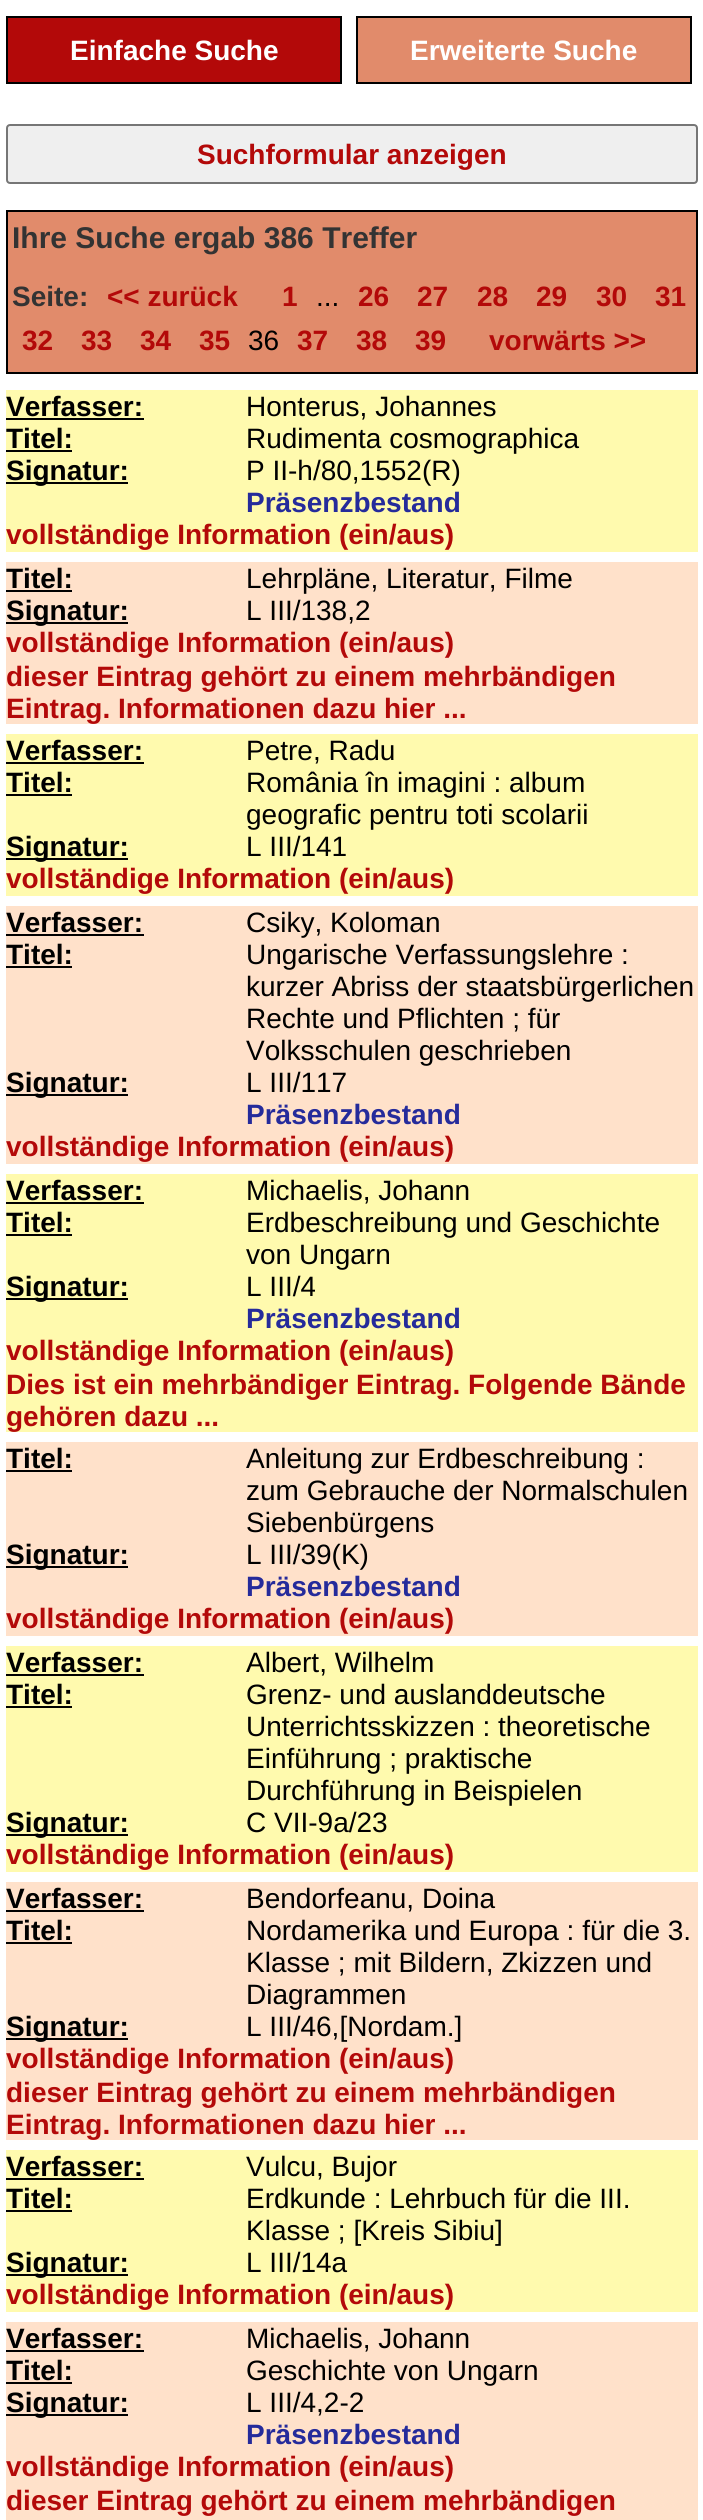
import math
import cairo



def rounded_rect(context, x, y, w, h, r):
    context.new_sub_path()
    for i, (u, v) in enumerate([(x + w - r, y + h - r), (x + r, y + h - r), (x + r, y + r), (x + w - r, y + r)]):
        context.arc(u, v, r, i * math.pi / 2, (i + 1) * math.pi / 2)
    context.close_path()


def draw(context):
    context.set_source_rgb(1, 1, 1)
    context.paint()
    context.set_source_rgb(179 / 255, 9 / 255, 9 / 255)
    context.rectangle(7, 17, 334, 66)
    context.fill_preserve()
    context.set_source_rgb(0, 0, 0)
    context.stroke()
    context.set_source_rgb(225 / 255, 139 / 255, 107 / 255)
    context.rectangle(357, 17, 334, 66)
    context.fill_preserve()
    context.set_source_rgb(0, 0, 0)
    context.stroke()
    context.set_source_rgb(239 / 255, 239 / 255, 239 / 255)
    rounded_rect(context, 7, 125, 690, 58, 3)
    context.fill_preserve()
    context.set_source_rgb(118 / 255, 118 / 255, 118 / 255)
    context.stroke()
    context.set_source_rgb(225 / 255, 139 / 255, 107 / 255)
    context.rectangle(7, 211, 690, 162)
    context.fill_preserve()
    context.set_source_rgb(0, 0, 0)
    context.stroke()
    context.set_source_rgb(1, 250 / 255, 174 / 255)
    context.rectangle(6, 390, 692, 162)
    context.fill()
    context.set_source_rgb(0, 0, 0)
    context.rectangle(6, 418, 138, 2)
    context.fill()
    context.rectangle(6, 450, 66, 2)
    context.fill()
    context.rectangle(6, 482, 122, 2)
    context.fill()
    context.set_source_rgb(1, 225 / 255, 202 / 255)
    context.rectangle(6, 562, 692, 162)
    context.fill()
    context.set_source_rgb(0, 0, 0)
    context.rectangle(6, 590, 66, 2)
    context.fill()
    context.rectangle(6, 622, 122, 2)
    context.fill()
    context.set_source_rgb(1, 250 / 255, 174 / 255)
    context.rectangle(6, 734, 692, 162)
    context.fill()
    context.set_source_rgb(0, 0, 0)
    context.rectangle(6, 762, 138, 2)
    context.fill()
    context.rectangle(6, 794, 66, 2)
    context.fill()
    context.rectangle(6, 858, 122, 2)
    context.fill()
    context.set_source_rgb(1, 225 / 255, 202 / 255)
    context.rectangle(6, 906, 692, 258)
    context.fill()
    context.set_source_rgb(0, 0, 0)
    context.rectangle(6, 934, 138, 2)
    context.fill()
    context.rectangle(6, 966, 66, 2)
    context.fill()
    context.rectangle(6, 1094, 122, 2)
    context.fill()
    context.set_source_rgb(1, 250 / 255, 174 / 255)
    context.rectangle(6, 1174, 692, 258)
    context.fill()
    context.set_source_rgb(0, 0, 0)
    context.rectangle(6, 1202, 138, 2)
    context.fill()
    context.rectangle(6, 1234, 66, 2)
    context.fill()
    context.rectangle(6, 1298, 122, 2)
    context.fill()
    context.set_source_rgb(1, 225 / 255, 202 / 255)
    context.rectangle(6, 1442, 692, 194)
    context.fill()
    context.set_source_rgb(0, 0, 0)
    context.rectangle(6, 1470, 66, 2)
    context.fill()
    context.rectangle(6, 1566, 122, 2)
    context.fill()
    context.set_source_rgb(1, 250 / 255, 174 / 255)
    context.rectangle(6, 1646, 692, 226)
    context.fill()
    context.set_source_rgb(0, 0, 0)
    context.rectangle(6, 1674, 138, 2)
    context.fill()
    context.rectangle(6, 1706, 66, 2)
    context.fill()
    context.rectangle(6, 1834, 122, 2)
    context.fill()
    context.set_source_rgb(1, 225 / 255, 202 / 255)
    context.rectangle(6, 1882, 692, 258)
    context.fill()
    context.set_source_rgb(0, 0, 0)
    context.rectangle(6, 1910, 138, 2)
    context.fill()
    context.rectangle(6, 1942, 66, 2)
    context.fill()
    context.rectangle(6, 2038, 122, 2)
    context.fill()
    context.set_source_rgb(1, 250 / 255, 174 / 255)
    context.rectangle(6, 2150, 692, 162)
    context.fill()
    context.set_source_rgb(0, 0, 0)
    context.rectangle(6, 2178, 138, 2)
    context.fill()
    context.rectangle(6, 2210, 66, 2)
    context.fill()
    context.rectangle(6, 2274, 122, 2)
    context.fill()
    context.set_source_rgb(1, 225 / 255, 202 / 255)
    context.rectangle(6, 2322, 692, 198)
    context.fill()
    context.set_source_rgb(0, 0, 0)
    context.rectangle(6, 2350, 138, 2)
    context.fill()
    context.rectangle(6, 2382, 66, 2)
    context.fill()
    context.rectangle(6, 2414, 122, 2)
    context.fill()
    context.select_font_face("Liberation Sans", cairo.FontSlant.NORMAL, cairo.FontWeight.BOLD)
    context.set_font_size(28)
    context.set_source_rgb(1, 1, 1)
    context.move_to(70, 60)
    context.show_text("Einfache Suche")
    context.move_to(410, 60)
    context.show_text("Erweiterte Suche")
    context.set_source_rgb(179 / 255, 9 / 255, 9 / 255)
    context.move_to(197, 164)
    context.show_text("Suchformular anzeigen")
    context.set_font_size(30)
    context.set_source_rgb(51 / 255, 51 / 255, 51 / 255)
    context.move_to(12, 248)
    context.show_text("Ihre Suche ergab 386 Treffer")
    context.set_font_size(28)
    context.move_to(12, 306)
    context.show_text("Seite:")
    context.set_source_rgb(179 / 255, 9 / 255, 9 / 255)
    context.move_to(107, 306)
    context.show_text("<< zurück")
    context.move_to(282, 306)
    context.show_text("1")
    context.select_font_face("Liberation Sans")
    context.set_source_rgb(0, 0, 0)
    context.move_to(316, 306)
    context.show_text("...")
    context.select_font_face("Liberation Sans", cairo.FontSlant.NORMAL, cairo.FontWeight.BOLD)
    context.set_source_rgb(179 / 255, 9 / 255, 9 / 255)
    context.move_to(358, 306)
    context.show_text("26")
    context.move_to(417, 306)
    context.show_text("27")
    context.move_to(477, 306)
    context.show_text("28")
    context.move_to(536, 306)
    context.show_text("29")
    context.move_to(596, 306)
    context.show_text("30")
    context.move_to(655, 306)
    context.show_text("31")
    context.move_to(22, 350)
    context.show_text("32")
    context.move_to(81, 350)
    context.show_text("33")
    context.move_to(140, 350)
    context.show_text("34")
    context.move_to(199, 350)
    context.show_text("35")
    context.select_font_face("Liberation Sans")
    context.set_source_rgb(0, 0, 0)
    context.move_to(248, 350)
    context.show_text("36")
    context.select_font_face("Liberation Sans", cairo.FontSlant.NORMAL, cairo.FontWeight.BOLD)
    context.set_source_rgb(179 / 255, 9 / 255, 9 / 255)
    context.move_to(297, 350)
    context.show_text("37")
    context.move_to(356, 350)
    context.show_text("38")
    context.move_to(415, 350)
    context.show_text("39")
    context.move_to(489, 350)
    context.show_text("vorwärts >>")
    context.set_source_rgb(0, 0, 0)
    context.move_to(6, 416)
    context.show_text("Verfasser:")
    context.select_font_face("Liberation Sans")
    context.move_to(246, 416)
    context.show_text("Honterus, Johannes")
    context.select_font_face("Liberation Sans", cairo.FontSlant.NORMAL, cairo.FontWeight.BOLD)
    context.move_to(6, 448)
    context.show_text("Titel:")
    context.select_font_face("Liberation Sans")
    context.move_to(246, 448)
    context.show_text("Rudimenta cosmographica")
    context.select_font_face("Liberation Sans", cairo.FontSlant.NORMAL, cairo.FontWeight.BOLD)
    context.move_to(6, 480)
    context.show_text("Signatur:")
    context.select_font_face("Liberation Sans")
    context.move_to(246, 480)
    context.show_text("P II-h/80,1552(R)")
    context.select_font_face("Liberation Sans", cairo.FontSlant.NORMAL, cairo.FontWeight.BOLD)
    context.set_source_rgb(37 / 255, 43 / 255, 155 / 255)
    context.move_to(246, 512)
    context.show_text("Präsenzbestand")
    context.set_source_rgb(179 / 255, 9 / 255, 9 / 255)
    context.move_to(6, 544)
    context.show_text("vollständige Information (ein/aus)")
    context.set_source_rgb(0, 0, 0)
    context.move_to(6, 588)
    context.show_text("Titel:")
    context.select_font_face("Liberation Sans")
    context.move_to(246, 588)
    context.show_text("Lehrpläne, Literatur, Filme")
    context.select_font_face("Liberation Sans", cairo.FontSlant.NORMAL, cairo.FontWeight.BOLD)
    context.move_to(6, 620)
    context.show_text("Signatur:")
    context.select_font_face("Liberation Sans")
    context.move_to(246, 620)
    context.show_text("L III/138,2")
    context.select_font_face("Liberation Sans", cairo.FontSlant.NORMAL, cairo.FontWeight.BOLD)
    context.set_source_rgb(179 / 255, 9 / 255, 9 / 255)
    context.move_to(6, 652)
    context.show_text("vollständige Information (ein/aus)")
    context.move_to(6, 686)
    context.show_text("dieser Eintrag gehört zu einem mehrbändigen")
    context.move_to(6, 718)
    context.show_text("Eintrag. Informationen dazu hier ...")
    context.set_source_rgb(0, 0, 0)
    context.move_to(6, 760)
    context.show_text("Verfasser:")
    context.select_font_face("Liberation Sans")
    context.move_to(246, 760)
    context.show_text("Petre, Radu")
    context.select_font_face("Liberation Sans", cairo.FontSlant.NORMAL, cairo.FontWeight.BOLD)
    context.move_to(6, 792)
    context.show_text("Titel:")
    context.select_font_face("Liberation Sans")
    context.move_to(246, 792)
    context.show_text("România în imagini : album")
    context.move_to(246, 824)
    context.show_text("geografic pentru toti scolarii")
    context.select_font_face("Liberation Sans", cairo.FontSlant.NORMAL, cairo.FontWeight.BOLD)
    context.move_to(6, 856)
    context.show_text("Signatur:")
    context.select_font_face("Liberation Sans")
    context.move_to(246, 856)
    context.show_text("L III/141")
    context.select_font_face("Liberation Sans", cairo.FontSlant.NORMAL, cairo.FontWeight.BOLD)
    context.set_source_rgb(179 / 255, 9 / 255, 9 / 255)
    context.move_to(6, 888)
    context.show_text("vollständige Information (ein/aus)")
    context.set_source_rgb(0, 0, 0)
    context.move_to(6, 932)
    context.show_text("Verfasser:")
    context.select_font_face("Liberation Sans")
    context.move_to(246, 932)
    context.show_text("Csiky, Koloman")
    context.select_font_face("Liberation Sans", cairo.FontSlant.NORMAL, cairo.FontWeight.BOLD)
    context.move_to(6, 964)
    context.show_text("Titel:")
    context.select_font_face("Liberation Sans")
    context.move_to(246, 964)
    context.show_text("Ungarische Verfassungslehre :")
    context.move_to(246, 996)
    context.show_text("kurzer Abriss der staatsbürgerlichen")
    context.move_to(246, 1028)
    context.show_text("Rechte und Pflichten ; für")
    context.move_to(246, 1060)
    context.show_text("Volksschulen geschrieben")
    context.select_font_face("Liberation Sans", cairo.FontSlant.NORMAL, cairo.FontWeight.BOLD)
    context.move_to(6, 1092)
    context.show_text("Signatur:")
    context.select_font_face("Liberation Sans")
    context.move_to(246, 1092)
    context.show_text("L III/117")
    context.select_font_face("Liberation Sans", cairo.FontSlant.NORMAL, cairo.FontWeight.BOLD)
    context.set_source_rgb(37 / 255, 43 / 255, 155 / 255)
    context.move_to(246, 1124)
    context.show_text("Präsenzbestand")
    context.set_source_rgb(179 / 255, 9 / 255, 9 / 255)
    context.move_to(6, 1156)
    context.show_text("vollständige Information (ein/aus)")
    context.set_source_rgb(0, 0, 0)
    context.move_to(6, 1200)
    context.show_text("Verfasser:")
    context.select_font_face("Liberation Sans")
    context.move_to(246, 1200)
    context.show_text("Michaelis, Johann")
    context.select_font_face("Liberation Sans", cairo.FontSlant.NORMAL, cairo.FontWeight.BOLD)
    context.move_to(6, 1232)
    context.show_text("Titel:")
    context.select_font_face("Liberation Sans")
    context.move_to(246, 1232)
    context.show_text("Erdbeschreibung und Geschichte")
    context.move_to(246, 1264)
    context.show_text("von Ungarn")
    context.select_font_face("Liberation Sans", cairo.FontSlant.NORMAL, cairo.FontWeight.BOLD)
    context.move_to(6, 1296)
    context.show_text("Signatur:")
    context.select_font_face("Liberation Sans")
    context.move_to(246, 1296)
    context.show_text("L III/4")
    context.select_font_face("Liberation Sans", cairo.FontSlant.NORMAL, cairo.FontWeight.BOLD)
    context.set_source_rgb(37 / 255, 43 / 255, 155 / 255)
    context.move_to(246, 1328)
    context.show_text("Präsenzbestand")
    context.set_source_rgb(179 / 255, 9 / 255, 9 / 255)
    context.move_to(6, 1360)
    context.show_text("vollständige Information (ein/aus)")
    context.move_to(6, 1394)
    context.show_text("Dies ist ein mehrbändiger Eintrag. Folgende Bände")
    context.move_to(6, 1426)
    context.show_text("gehören dazu ...")
    context.set_source_rgb(0, 0, 0)
    context.move_to(6, 1468)
    context.show_text("Titel:")
    context.select_font_face("Liberation Sans")
    context.move_to(246, 1468)
    context.show_text("Anleitung zur Erdbeschreibung :")
    context.move_to(246, 1500)
    context.show_text("zum Gebrauche der Normalschulen")
    context.move_to(246, 1532)
    context.show_text("Siebenbürgens")
    context.select_font_face("Liberation Sans", cairo.FontSlant.NORMAL, cairo.FontWeight.BOLD)
    context.move_to(6, 1564)
    context.show_text("Signatur:")
    context.select_font_face("Liberation Sans")
    context.move_to(246, 1564)
    context.show_text("L III/39(K)")
    context.select_font_face("Liberation Sans", cairo.FontSlant.NORMAL, cairo.FontWeight.BOLD)
    context.set_source_rgb(37 / 255, 43 / 255, 155 / 255)
    context.move_to(246, 1596)
    context.show_text("Präsenzbestand")
    context.set_source_rgb(179 / 255, 9 / 255, 9 / 255)
    context.move_to(6, 1628)
    context.show_text("vollständige Information (ein/aus)")
    context.set_source_rgb(0, 0, 0)
    context.move_to(6, 1672)
    context.show_text("Verfasser:")
    context.select_font_face("Liberation Sans")
    context.move_to(246, 1672)
    context.show_text("Albert, Wilhelm")
    context.select_font_face("Liberation Sans", cairo.FontSlant.NORMAL, cairo.FontWeight.BOLD)
    context.move_to(6, 1704)
    context.show_text("Titel:")
    context.select_font_face("Liberation Sans")
    context.move_to(246, 1704)
    context.show_text("Grenz- und auslanddeutsche")
    context.move_to(246, 1736)
    context.show_text("Unterrichtsskizzen : theoretische")
    context.move_to(246, 1768)
    context.show_text("Einführung ; praktische")
    context.move_to(246, 1800)
    context.show_text("Durchführung in Beispielen")
    context.select_font_face("Liberation Sans", cairo.FontSlant.NORMAL, cairo.FontWeight.BOLD)
    context.move_to(6, 1832)
    context.show_text("Signatur:")
    context.select_font_face("Liberation Sans")
    context.move_to(246, 1832)
    context.show_text("C VII-9a/23")
    context.select_font_face("Liberation Sans", cairo.FontSlant.NORMAL, cairo.FontWeight.BOLD)
    context.set_source_rgb(179 / 255, 9 / 255, 9 / 255)
    context.move_to(6, 1864)
    context.show_text("vollständige Information (ein/aus)")
    context.set_source_rgb(0, 0, 0)
    context.move_to(6, 1908)
    context.show_text("Verfasser:")
    context.select_font_face("Liberation Sans")
    context.move_to(246, 1908)
    context.show_text("Bendorfeanu, Doina")
    context.select_font_face("Liberation Sans", cairo.FontSlant.NORMAL, cairo.FontWeight.BOLD)
    context.move_to(6, 1940)
    context.show_text("Titel:")
    context.select_font_face("Liberation Sans")
    context.move_to(246, 1940)
    context.show_text("Nordamerika und Europa : für die 3.")
    context.move_to(246, 1972)
    context.show_text("Klasse ; mit Bildern, Zkizzen und")
    context.move_to(246, 2004)
    context.show_text("Diagrammen")
    context.select_font_face("Liberation Sans", cairo.FontSlant.NORMAL, cairo.FontWeight.BOLD)
    context.move_to(6, 2036)
    context.show_text("Signatur:")
    context.select_font_face("Liberation Sans")
    context.move_to(246, 2036)
    context.show_text("L III/46,[Nordam.]")
    context.select_font_face("Liberation Sans", cairo.FontSlant.NORMAL, cairo.FontWeight.BOLD)
    context.set_source_rgb(179 / 255, 9 / 255, 9 / 255)
    context.move_to(6, 2068)
    context.show_text("vollständige Information (ein/aus)")
    context.move_to(6, 2102)
    context.show_text("dieser Eintrag gehört zu einem mehrbändigen")
    context.move_to(6, 2134)
    context.show_text("Eintrag. Informationen dazu hier ...")
    context.set_source_rgb(0, 0, 0)
    context.move_to(6, 2176)
    context.show_text("Verfasser:")
    context.select_font_face("Liberation Sans")
    context.move_to(246, 2176)
    context.show_text("Vulcu, Bujor")
    context.select_font_face("Liberation Sans", cairo.FontSlant.NORMAL, cairo.FontWeight.BOLD)
    context.move_to(6, 2208)
    context.show_text("Titel:")
    context.select_font_face("Liberation Sans")
    context.move_to(246, 2208)
    context.show_text("Erdkunde : Lehrbuch für die III.")
    context.move_to(246, 2240)
    context.show_text("Klasse ; [Kreis Sibiu]")
    context.select_font_face("Liberation Sans", cairo.FontSlant.NORMAL, cairo.FontWeight.BOLD)
    context.move_to(6, 2272)
    context.show_text("Signatur:")
    context.select_font_face("Liberation Sans")
    context.move_to(246, 2272)
    context.show_text("L III/14a")
    context.select_font_face("Liberation Sans", cairo.FontSlant.NORMAL, cairo.FontWeight.BOLD)
    context.set_source_rgb(179 / 255, 9 / 255, 9 / 255)
    context.move_to(6, 2304)
    context.show_text("vollständige Information (ein/aus)")
    context.set_source_rgb(0, 0, 0)
    context.move_to(6, 2348)
    context.show_text("Verfasser:")
    context.select_font_face("Liberation Sans")
    context.move_to(246, 2348)
    context.show_text("Michaelis, Johann")
    context.select_font_face("Liberation Sans", cairo.FontSlant.NORMAL, cairo.FontWeight.BOLD)
    context.move_to(6, 2380)
    context.show_text("Titel:")
    context.select_font_face("Liberation Sans")
    context.move_to(246, 2380)
    context.show_text("Geschichte von Ungarn")
    context.select_font_face("Liberation Sans", cairo.FontSlant.NORMAL, cairo.FontWeight.BOLD)
    context.move_to(6, 2412)
    context.show_text("Signatur:")
    context.select_font_face("Liberation Sans")
    context.move_to(246, 2412)
    context.show_text("L III/4,2-2")
    context.select_font_face("Liberation Sans", cairo.FontSlant.NORMAL, cairo.FontWeight.BOLD)
    context.set_source_rgb(37 / 255, 43 / 255, 155 / 255)
    context.move_to(246, 2444)
    context.show_text("Präsenzbestand")
    context.set_source_rgb(179 / 255, 9 / 255, 9 / 255)
    context.move_to(6, 2476)
    context.show_text("vollständige Information (ein/aus)")
    context.move_to(6, 2510)
    context.show_text("dieser Eintrag gehört zu einem mehrbändigen")


surface = cairo.ImageSurface(cairo.Format.RGB24, 703, 2520)
context = cairo.Context(surface)
options = cairo.FontOptions()
options.set_hint_metrics(cairo.HintMetrics.OFF)
options.set_hint_style(cairo.HintStyle.NONE)
context.set_font_options(options)
context.set_miter_limit(4)
draw(context)
surface.write_to_png("out.png")
